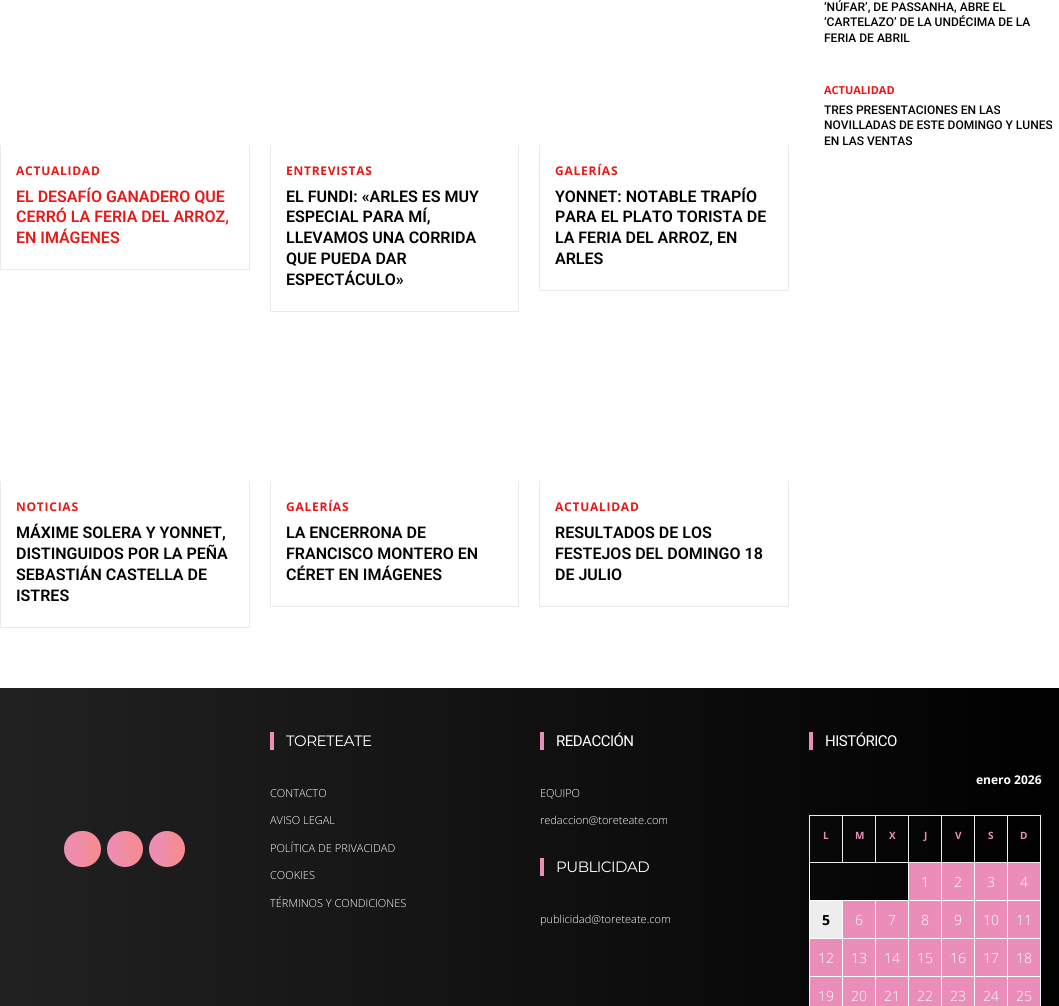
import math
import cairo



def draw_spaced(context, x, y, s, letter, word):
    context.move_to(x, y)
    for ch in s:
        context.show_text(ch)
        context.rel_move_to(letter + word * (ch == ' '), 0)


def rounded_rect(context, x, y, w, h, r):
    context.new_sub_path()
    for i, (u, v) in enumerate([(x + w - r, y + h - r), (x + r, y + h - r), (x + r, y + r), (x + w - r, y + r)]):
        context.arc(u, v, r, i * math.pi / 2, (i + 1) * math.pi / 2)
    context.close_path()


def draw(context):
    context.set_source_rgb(1, 1, 1)
    context.paint()
    context.set_source_rgb(234 / 255, 234 / 255, 234 / 255)
    context.rectangle(249, 145, 1, 125)
    context.fill()
    context.rectangle(0, 269, 250, 1)
    context.fill()
    context.rectangle(0, 145, 1, 125)
    context.fill()
    context.rectangle(518, 145, 1, 167)
    context.fill()
    context.rectangle(270, 311, 249, 1)
    context.fill()
    context.rectangle(270, 145, 1, 167)
    context.fill()
    context.rectangle(788, 145, 1, 146)
    context.fill()
    context.rectangle(539, 290, 250, 1)
    context.fill()
    context.rectangle(539, 145, 1, 146)
    context.fill()
    context.rectangle(249, 481, 1, 147)
    context.fill()
    context.rectangle(0, 627, 250, 1)
    context.fill()
    context.rectangle(0, 481, 1, 147)
    context.fill()
    context.rectangle(518, 481, 1, 126)
    context.fill()
    context.rectangle(270, 606, 249, 1)
    context.fill()
    context.rectangle(270, 481, 1, 126)
    context.fill()
    context.rectangle(788, 481, 1, 126)
    context.fill()
    context.rectangle(539, 606, 250, 1)
    context.fill()
    context.rectangle(539, 481, 1, 126)
    context.fill()
    gradient = cairo.LinearGradient(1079, 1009, -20, 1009)
    gradient.add_color_stop_rgba(0, 0, 0, 0, 1)
    gradient.add_color_stop_rgba(1, 34 / 255, 34 / 255, 34 / 255, 1)
    context.set_source(gradient)
    context.rectangle(0, 688, 1059, 318)
    context.fill()
    gradient = cairo.LinearGradient(101, 849, 64, 849)
    gradient.add_color_stop_rgba(0, 247 / 255, 140 / 255, 140 / 255, 1)
    gradient.add_color_stop_rgba(1, 235 / 255, 141 / 255, 185 / 255, 1)
    context.set_source(gradient)
    rounded_rect(context, 64, 831, 37, 36, 18)
    context.fill()
    gradient = cairo.LinearGradient(143, 849, 107, 849)
    gradient.add_color_stop_rgba(0, 247 / 255, 140 / 255, 140 / 255, 1)
    gradient.add_color_stop_rgba(1, 235 / 255, 141 / 255, 185 / 255, 1)
    context.set_source(gradient)
    context.arc(125, 849, 18, 0, 2 * math.pi)
    context.fill()
    gradient = cairo.LinearGradient(185, 849, 149, 849)
    gradient.add_color_stop_rgba(0, 247 / 255, 140 / 255, 140 / 255, 1)
    gradient.add_color_stop_rgba(1, 235 / 255, 141 / 255, 185 / 255, 1)
    context.set_source(gradient)
    context.arc(167, 849, 18, 0, 2 * math.pi)
    context.fill()
    context.set_source_rgb(235 / 255, 141 / 255, 185 / 255)
    context.rectangle(270, 732, 4, 18)
    context.fill()
    context.rectangle(540, 732, 4, 18)
    context.fill()
    context.rectangle(540, 858, 4, 18)
    context.fill()
    context.rectangle(809, 732, 4, 18)
    context.fill()
    context.set_source_rgb(237 / 255, 237 / 255, 237 / 255)
    context.rectangle(1007, 815, 34, 1)
    context.fill()
    context.set_source_rgb(1, 1, 1)
    context.rectangle(1007, 900, 34, 1)
    context.fill()
    context.rectangle(1007, 938, 34, 1)
    context.fill()
    context.rectangle(1007, 976, 34, 1)
    context.fill()
    context.rectangle(1040, 976, 1, 30)
    context.fill()
    context.rectangle(1040, 938, 1, 39)
    context.fill()
    context.rectangle(1040, 862, 1, 77)
    context.fill()
    context.set_source_rgb(237 / 255, 237 / 255, 237 / 255)
    context.rectangle(1040, 815, 1, 48)
    context.fill()
    context.set_source_rgb(1, 1, 1)
    context.rectangle(1007, 976, 1, 30)
    context.fill()
    context.rectangle(974, 976, 34, 1)
    context.fill()
    context.rectangle(1007, 938, 1, 39)
    context.fill()
    context.rectangle(974, 938, 34, 1)
    context.fill()
    context.rectangle(1007, 900, 1, 39)
    context.fill()
    context.rectangle(974, 900, 34, 1)
    context.fill()
    context.rectangle(1007, 862, 1, 39)
    context.fill()
    context.set_source_rgb(237 / 255, 237 / 255, 237 / 255)
    context.rectangle(1007, 862, 34, 1)
    context.fill()
    context.rectangle(1007, 815, 1, 48)
    context.fill()
    context.rectangle(974, 815, 34, 1)
    context.fill()
    context.set_source_rgb(1, 1, 1)
    context.rectangle(974, 976, 1, 30)
    context.fill()
    context.rectangle(941, 976, 34, 1)
    context.fill()
    context.rectangle(974, 938, 1, 39)
    context.fill()
    context.rectangle(941, 938, 34, 1)
    context.fill()
    context.rectangle(974, 900, 1, 39)
    context.fill()
    context.rectangle(941, 900, 34, 1)
    context.fill()
    context.rectangle(974, 862, 1, 39)
    context.fill()
    context.set_source_rgb(237 / 255, 237 / 255, 237 / 255)
    context.rectangle(974, 862, 34, 1)
    context.fill()
    context.rectangle(974, 815, 1, 48)
    context.fill()
    context.rectangle(941, 815, 34, 1)
    context.fill()
    context.set_source_rgb(1, 1, 1)
    context.rectangle(941, 976, 1, 30)
    context.fill()
    context.rectangle(908, 976, 34, 1)
    context.fill()
    context.rectangle(941, 938, 1, 39)
    context.fill()
    context.rectangle(908, 938, 34, 1)
    context.fill()
    context.rectangle(941, 900, 1, 39)
    context.fill()
    context.rectangle(908, 900, 34, 1)
    context.fill()
    context.rectangle(941, 862, 1, 39)
    context.fill()
    context.set_source_rgb(237 / 255, 237 / 255, 237 / 255)
    context.rectangle(941, 862, 34, 1)
    context.fill()
    context.rectangle(941, 815, 1, 48)
    context.fill()
    context.rectangle(908, 815, 34, 1)
    context.fill()
    context.set_source_rgb(1, 1, 1)
    context.rectangle(908, 976, 1, 30)
    context.fill()
    context.rectangle(875, 976, 34, 1)
    context.fill()
    context.rectangle(908, 938, 1, 39)
    context.fill()
    context.rectangle(875, 938, 34, 1)
    context.fill()
    context.rectangle(908, 900, 1, 39)
    context.fill()
    context.rectangle(875, 900, 34, 1)
    context.fill()
    context.rectangle(908, 862, 1, 39)
    context.fill()
    context.set_source_rgb(237 / 255, 237 / 255, 237 / 255)
    context.rectangle(908, 862, 34, 1)
    context.fill()
    context.rectangle(908, 815, 1, 48)
    context.fill()
    context.rectangle(875, 815, 34, 1)
    context.fill()
    context.rectangle(875, 862, 34, 1)
    context.fill()
    context.rectangle(875, 815, 1, 48)
    context.fill()
    context.rectangle(842, 815, 34, 1)
    context.fill()
    context.rectangle(842, 862, 34, 1)
    context.fill()
    context.rectangle(842, 815, 1, 48)
    context.fill()
    context.rectangle(809, 815, 34, 1)
    context.fill()
    context.set_source_rgb(1, 1, 1)
    context.rectangle(875, 976, 1, 30)
    context.fill()
    context.rectangle(842, 976, 34, 1)
    context.fill()
    context.rectangle(875, 938, 1, 39)
    context.fill()
    context.rectangle(842, 938, 34, 1)
    context.fill()
    context.rectangle(875, 900, 1, 39)
    context.fill()
    context.rectangle(842, 900, 34, 1)
    context.fill()
    context.rectangle(842, 976, 1, 30)
    context.fill()
    context.rectangle(809, 976, 34, 1)
    context.fill()
    context.rectangle(842, 938, 1, 39)
    context.fill()
    context.rectangle(809, 938, 34, 1)
    context.fill()
    context.rectangle(842, 900, 1, 39)
    context.fill()
    context.rectangle(809, 900, 34, 1)
    context.fill()
    context.rectangle(809, 976, 1, 30)
    context.fill()
    context.rectangle(809, 938, 1, 39)
    context.fill()
    context.rectangle(809, 862, 1, 77)
    context.fill()
    context.set_source_rgb(237 / 255, 237 / 255, 237 / 255)
    context.rectangle(809, 862, 34, 1)
    context.fill()
    context.rectangle(809, 815, 1, 48)
    context.fill()
    context.set_source_rgb(235 / 255, 141 / 255, 185 / 255)
    context.rectangle(909, 863, 32, 37)
    context.fill()
    context.rectangle(942, 863, 32, 37)
    context.fill()
    context.rectangle(975, 863, 32, 37)
    context.fill()
    context.rectangle(1008, 863, 32, 37)
    context.fill()
    context.set_source_rgb(237 / 255, 237 / 255, 237 / 255)
    context.rectangle(810, 901, 32, 37)
    context.fill()
    context.set_source_rgb(235 / 255, 141 / 255, 185 / 255)
    context.rectangle(843, 901, 32, 37)
    context.fill()
    context.rectangle(876, 901, 32, 37)
    context.fill()
    context.rectangle(909, 901, 32, 37)
    context.fill()
    context.rectangle(942, 901, 32, 37)
    context.fill()
    context.rectangle(975, 901, 32, 37)
    context.fill()
    context.rectangle(1008, 901, 32, 37)
    context.fill()
    context.rectangle(810, 939, 32, 37)
    context.fill()
    context.rectangle(843, 939, 32, 37)
    context.fill()
    context.rectangle(876, 939, 32, 37)
    context.fill()
    context.rectangle(909, 939, 32, 37)
    context.fill()
    context.rectangle(942, 939, 32, 37)
    context.fill()
    context.rectangle(975, 939, 32, 37)
    context.fill()
    context.rectangle(1008, 939, 32, 37)
    context.fill()
    context.rectangle(810, 977, 32, 29)
    context.fill()
    context.rectangle(843, 977, 32, 29)
    context.fill()
    context.rectangle(876, 977, 32, 29)
    context.fill()
    context.rectangle(909, 977, 32, 29)
    context.fill()
    context.rectangle(942, 977, 32, 29)
    context.fill()
    context.rectangle(975, 977, 32, 29)
    context.fill()
    context.rectangle(1008, 977, 32, 29)
    context.fill()
    context.select_font_face("Roboto Medium")
    context.set_font_size(12)
    context.set_source_rgb(0, 0, 0)
    context.move_to(824, 11)
    context.show_text("‘NÚFAR’, DE PASSANHA, ABRE EL")
    context.move_to(824, 26)
    context.show_text("‘CARTELAZO’ DE LA UNDÉCIMA DE LA")
    context.move_to(824, 42)
    context.show_text("FERIA DE ABRIL")
    context.select_font_face("Open Sans", cairo.FontSlant.NORMAL, cairo.FontWeight.BOLD)
    context.set_font_size(11)
    context.set_source_rgb(234 / 255, 23 / 255, 23 / 255)
    context.move_to(824, 94)
    context.show_text("ACTUALIDAD")
    context.select_font_face("Roboto Medium")
    context.set_font_size(12)
    context.set_source_rgb(0, 0, 0)
    context.move_to(824, 114)
    context.show_text("TRES PRESENTACIONES EN LAS")
    context.move_to(824, 129)
    context.show_text("NOVILLADAS DE ESTE DOMINGO Y LUNES")
    context.move_to(824, 145)
    context.show_text("EN LAS VENTAS")
    context.select_font_face("Open Sans", cairo.FontSlant.NORMAL, cairo.FontWeight.BOLD)
    context.set_source_rgb(234 / 255, 23 / 255, 23 / 255)
    draw_spaced(context, 16, 175, "ACTUALIDAD", 0.75, 0)
    context.select_font_face("Roboto SemiBold")
    context.set_font_size(16)
    context.move_to(16, 202)
    context.show_text("EL DESAFÍO GANADERO QUE")
    context.move_to(16, 222)
    context.show_text("CERRÓ LA FERIA DEL ARROZ,")
    context.move_to(16, 243)
    context.show_text("EN IMÁGENES")
    context.select_font_face("Open Sans", cairo.FontSlant.NORMAL, cairo.FontWeight.BOLD)
    context.set_font_size(12)
    draw_spaced(context, 286, 175, "ENTREVISTAS", 0.75, 0)
    context.select_font_face("Roboto SemiBold")
    context.set_font_size(16)
    context.set_source_rgb(0, 0, 0)
    context.move_to(286, 202)
    context.show_text("EL FUNDI: «ARLES ES MUY")
    context.move_to(286, 222)
    context.show_text("ESPECIAL PARA MÍ,")
    context.move_to(286, 243)
    context.show_text("LLEVAMOS UNA CORRIDA")
    context.move_to(286, 264)
    context.show_text("QUE PUEDA DAR")
    context.move_to(286, 285)
    context.show_text("ESPECTÁCULO»")
    context.select_font_face("Open Sans", cairo.FontSlant.NORMAL, cairo.FontWeight.BOLD)
    context.set_font_size(12)
    context.set_source_rgb(234 / 255, 23 / 255, 23 / 255)
    draw_spaced(context, 555, 175, "GALERÍAS", 0.75, 0)
    context.select_font_face("Roboto SemiBold")
    context.set_font_size(16)
    context.set_source_rgb(0, 0, 0)
    context.move_to(555, 202)
    context.show_text("YONNET: NOTABLE TRAPÍO")
    context.move_to(555, 222)
    context.show_text("PARA EL PLATO TORISTA DE")
    context.move_to(555, 243)
    context.show_text("LA FERIA DEL ARROZ, EN")
    context.move_to(555, 264)
    context.show_text("ARLES")
    context.select_font_face("Open Sans", cairo.FontSlant.NORMAL, cairo.FontWeight.BOLD)
    context.set_font_size(12)
    context.set_source_rgb(234 / 255, 23 / 255, 23 / 255)
    draw_spaced(context, 16, 511, "NOTICIAS", 0.75, 0)
    context.select_font_face("Roboto SemiBold")
    context.set_font_size(16)
    context.set_source_rgb(0, 0, 0)
    context.move_to(16, 538)
    context.show_text("MÁXIME SOLERA Y YONNET,")
    context.move_to(16, 559)
    context.show_text("DISTINGUIDOS POR LA PEÑA")
    context.move_to(16, 580)
    context.show_text("SEBASTIÁN CASTELLA DE")
    context.move_to(16, 601)
    context.show_text("ISTRES")
    context.select_font_face("Open Sans", cairo.FontSlant.NORMAL, cairo.FontWeight.BOLD)
    context.set_font_size(12)
    context.set_source_rgb(234 / 255, 23 / 255, 23 / 255)
    draw_spaced(context, 286, 511, "GALERÍAS", 0.75, 0)
    context.select_font_face("Roboto SemiBold")
    context.set_font_size(16)
    context.set_source_rgb(0, 0, 0)
    context.move_to(286, 538)
    context.show_text("LA ENCERRONA DE")
    context.move_to(286, 559)
    context.show_text("FRANCISCO MONTERO EN")
    context.move_to(286, 580)
    context.show_text("CÉRET EN IMÁGENES")
    context.select_font_face("Open Sans", cairo.FontSlant.NORMAL, cairo.FontWeight.BOLD)
    context.set_font_size(12)
    context.set_source_rgb(234 / 255, 23 / 255, 23 / 255)
    draw_spaced(context, 555, 511, "ACTUALIDAD", 0.75, 0)
    context.select_font_face("Roboto SemiBold")
    context.set_font_size(16)
    context.set_source_rgb(0, 0, 0)
    context.move_to(555, 538)
    context.show_text("RESULTADOS DE LOS")
    context.move_to(555, 559)
    context.show_text("FESTEJOS DEL DOMINGO 18")
    context.move_to(555, 580)
    context.show_text("DE JULIO")
    context.select_font_face("Montserrat")
    context.set_font_size(15)
    context.set_source_rgb(1, 1, 1)
    draw_spaced(context, 286, 746, "TORETEATE", -0.5, 0)
    context.select_font_face("Open Sans Light")
    context.set_font_size(11)
    context.move_to(270, 797)
    context.show_text("CONTACTO")
    context.move_to(270, 824)
    context.show_text("AVISO LEGAL")
    context.move_to(270, 852)
    context.show_text("POLÍTICA DE PRIVACIDAD")
    context.move_to(270, 879)
    context.show_text("COOKIES")
    context.move_to(270, 907)
    context.show_text("TÉRMINOS Y CONDICIONES")
    context.select_font_face("Roboto")
    context.set_font_size(15)
    draw_spaced(context, 556, 746, "REDACCIÓN", -0.5, 0)
    context.select_font_face("Open Sans Light")
    context.set_font_size(11)
    context.move_to(540, 797)
    context.show_text("EQUIPO")
    context.move_to(540, 824)
    context.show_text("redaccion@toreteate.com")
    context.select_font_face("Montserrat")
    context.set_font_size(15)
    draw_spaced(context, 556, 872, "PUBLICIDAD", -0.5, 0)
    context.select_font_face("Open Sans Light")
    context.set_font_size(11)
    context.move_to(540, 923)
    context.show_text("publicidad@toreteate.com")
    context.select_font_face("Roboto")
    context.set_font_size(15)
    draw_spaced(context, 825, 746, "HISTÓRICO", -0.5, 0)
    context.select_font_face("Open Sans", cairo.FontSlant.NORMAL, cairo.FontWeight.BOLD)
    context.set_font_size(12)
    context.move_to(976, 784)
    context.show_text("enero 2026")
    context.set_font_size(10)
    context.set_source_rgb(235 / 255, 141 / 255, 185 / 255)
    context.move_to(823, 839)
    context.show_text("L")
    context.move_to(855, 839)
    context.show_text("M")
    context.move_to(889, 839)
    context.show_text("X")
    context.move_to(924, 839)
    context.show_text("J")
    context.move_to(955, 839)
    context.show_text("V")
    context.move_to(988, 839)
    context.show_text("S")
    context.move_to(1020, 839)
    context.show_text("D")
    context.select_font_face("Open Sans Light")
    context.set_font_size(14)
    context.set_source_rgb(1, 1, 1)
    context.move_to(921, 887)
    context.show_text("1")
    context.move_to(954, 887)
    context.show_text("2")
    context.move_to(987, 887)
    context.show_text("3")
    context.move_to(1020, 887)
    context.show_text("4")
    context.select_font_face("Open Sans", cairo.FontSlant.NORMAL, cairo.FontWeight.BOLD)
    context.set_source_rgb(0, 0, 0)
    context.move_to(822, 925)
    context.show_text("5")
    context.select_font_face("Open Sans Light")
    context.set_source_rgb(1, 1, 1)
    context.move_to(855, 925)
    context.show_text("6")
    context.move_to(888, 925)
    context.show_text("7")
    context.move_to(921, 925)
    context.show_text("8")
    context.move_to(954, 925)
    context.show_text("9")
    context.move_to(983, 925)
    context.show_text("10")
    context.move_to(1016, 925)
    context.show_text("11")
    context.move_to(818, 963)
    context.show_text("12")
    context.move_to(851, 963)
    context.show_text("13")
    context.move_to(884, 963)
    context.show_text("14")
    context.move_to(917, 963)
    context.show_text("15")
    context.move_to(950, 963)
    context.show_text("16")
    context.move_to(983, 963)
    context.show_text("17")
    context.move_to(1016, 963)
    context.show_text("18")
    context.move_to(818, 1001)
    context.show_text("19")
    context.move_to(851, 1001)
    context.show_text("20")
    context.move_to(884, 1001)
    context.show_text("21")
    context.move_to(917, 1001)
    context.show_text("22")
    context.move_to(950, 1001)
    context.show_text("23")
    context.move_to(983, 1001)
    context.show_text("24")
    context.move_to(1016, 1001)
    context.show_text("25")


surface = cairo.ImageSurface(cairo.Format.RGB24, 1059, 1006)
context = cairo.Context(surface)
options = cairo.FontOptions()
options.set_hint_metrics(cairo.HintMetrics.OFF)
options.set_hint_style(cairo.HintStyle.NONE)
context.set_font_options(options)
context.set_miter_limit(4)
draw(context)
surface.write_to_png("out.png")
